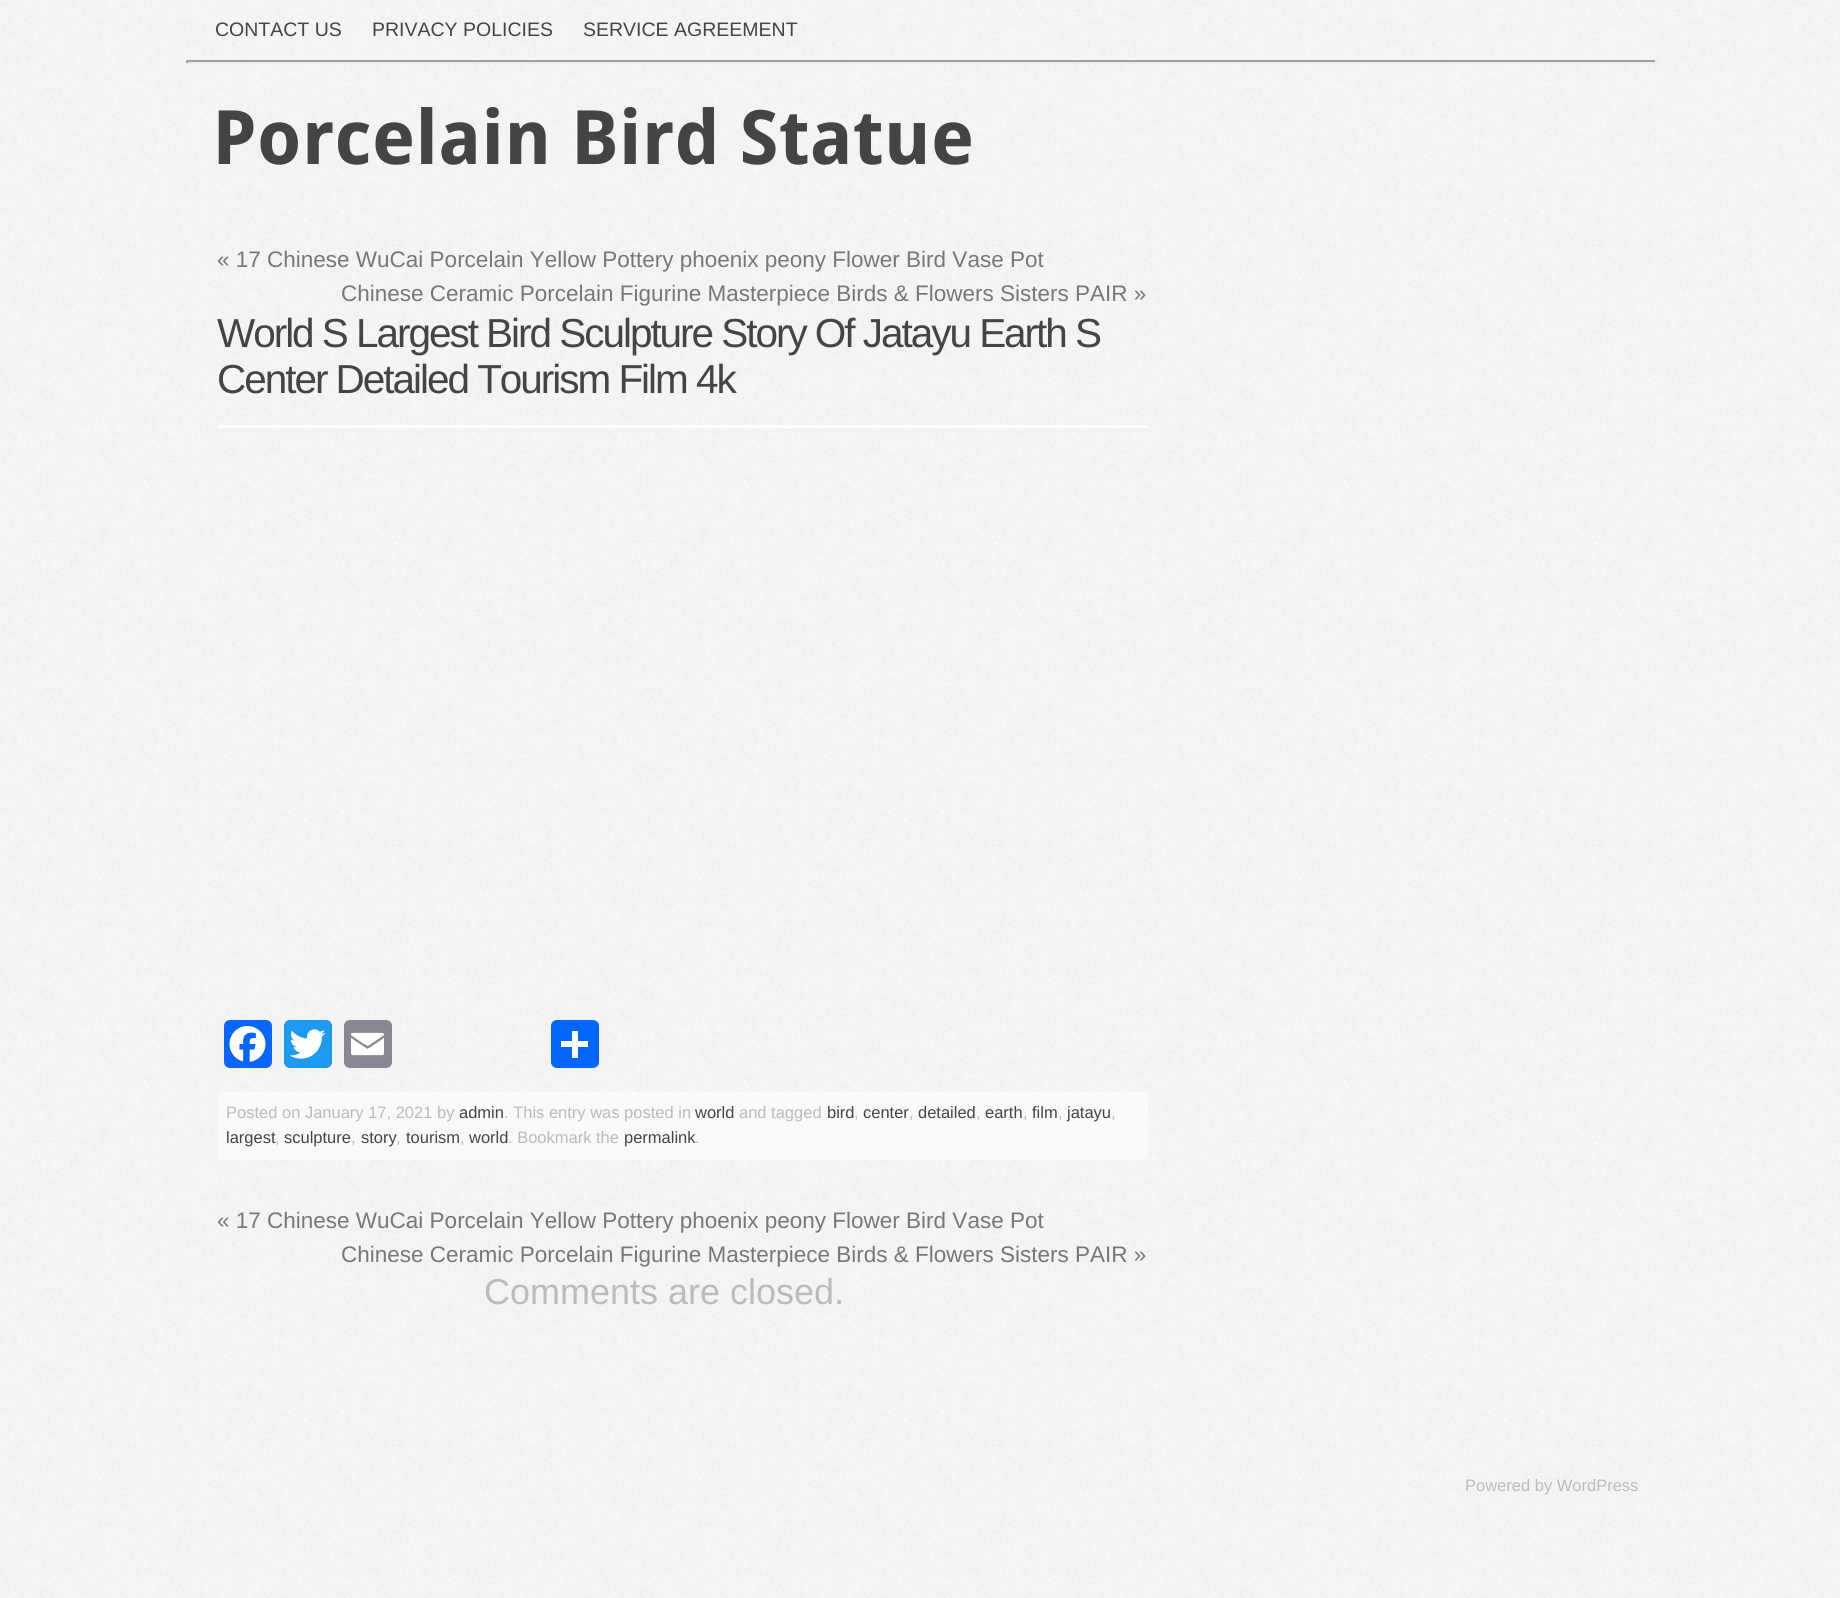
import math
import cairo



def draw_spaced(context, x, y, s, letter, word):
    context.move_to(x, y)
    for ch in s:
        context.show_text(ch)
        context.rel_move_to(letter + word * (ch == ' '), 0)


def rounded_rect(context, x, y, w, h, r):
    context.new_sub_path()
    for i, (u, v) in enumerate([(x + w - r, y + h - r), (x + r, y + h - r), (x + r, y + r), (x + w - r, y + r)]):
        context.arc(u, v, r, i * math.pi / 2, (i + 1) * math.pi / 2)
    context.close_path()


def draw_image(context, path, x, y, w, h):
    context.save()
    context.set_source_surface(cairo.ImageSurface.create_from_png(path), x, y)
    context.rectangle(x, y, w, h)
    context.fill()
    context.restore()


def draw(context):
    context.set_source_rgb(1, 1, 1)
    context.paint()
    draw_image(context, "images/1.png", 0, 0, 1840, 1598)
    context.set_source_rgb(159 / 255, 159 / 255, 159 / 255)
    context.rectangle(186, 60, 1470, 2)
    context.fill()
    context.set_source_rgb(238 / 255, 238 / 255, 238 / 255)
    context.rectangle(1655, 60, 2, 3)
    context.fill()
    context.rectangle(186, 62, 1470, 2)
    context.fill()
    context.set_source_rgb(159 / 255, 159 / 255, 159 / 255)
    context.rectangle(186, 60, 2, 3)
    context.fill()
    context.set_source_rgb(1, 1, 1)
    context.rectangle(218, 425, 930, 3)
    context.fill()
    context.set_source_rgb(243 / 255, 243 / 255, 243 / 255)
    context.rectangle(218, 1020, 180, 48)
    context.fill()
    context.set_source_rgb(8 / 255, 102 / 255, 1)
    rounded_rect(context, 224, 1020, 48, 48, 6)
    context.fill()
    draw_image(context, "images/2.png", 229, 1026, 37, 36)
    context.set_source_rgb(29 / 255, 155 / 255, 240 / 255)
    rounded_rect(context, 284, 1020, 48, 48, 6)
    context.fill()
    draw_image(context, "images/3.png", 289, 1029, 37, 30)
    context.set_source_rgb(136 / 255, 137 / 255, 144 / 255)
    rounded_rect(context, 344, 1020, 48, 48, 6)
    context.fill()
    draw_image(context, "images/4.png", 351, 1032, 33, 24)
    context.set_source_rgb(243 / 255, 243 / 255, 243 / 255)
    context.rectangle(545, 1020, 59, 48)
    context.fill()
    context.set_source_rgb(1 / 255, 102 / 255, 1)
    rounded_rect(context, 551, 1020, 48, 48, 6)
    context.fill()
    context.set_source_rgb(1, 1, 1)
    context.rectangle(572, 1031, 6, 27)
    context.fill()
    context.rectangle(561, 1041, 27, 6)
    context.fill()
    context.set_source_rgba(1, 1, 1, 0.5)
    rounded_rect(context, 218, 1092, 930, 68, 5)
    context.fill()
    context.select_font_face("Liberation Sans")
    context.set_font_size(19.5)
    context.set_source_rgb(68 / 255, 68 / 255, 68 / 255)
    context.move_to(215, 36)
    context.show_text("CONTACT US")
    context.move_to(372, 36)
    context.show_text("PRIVACY POLICIES")
    context.move_to(583, 36)
    context.show_text("SERVICE AGREEMENT")
    context.select_font_face("Droid Sans", cairo.FontSlant.NORMAL, cairo.FontWeight.BOLD)
    context.set_font_size(75)
    context.move_to(212, 164)
    context.show_text("Porcelain Bird Statue")
    context.select_font_face("Liberation Sans")
    context.set_font_size(22.5)
    context.set_source_rgb(119 / 255, 119 / 255, 119 / 255)
    context.move_to(217, 267)
    context.show_text("« 17 Chinese WuCai Porcelain Yellow Pottery phoenix peony Flower Bird Vase Pot")
    context.move_to(341, 301)
    context.show_text("Chinese Ceramic Porcelain Figurine Masterpiece Birds & Flowers Sisters PAIR »")
    context.set_font_size(40.5)
    context.set_source_rgb(68 / 255, 68 / 255, 68 / 255)
    draw_spaced(context, 217, 347, "World S Largest Bird Sculpture Story Of Jatayu Earth S", -2.03, 0)
    draw_spaced(context, 217, 393, "Center Detailed Tourism Film 4k", -2.03, 0)
    context.set_font_size(16.5)
    context.set_source_rgb(187 / 255, 187 / 255, 187 / 255)
    context.move_to(226, 1118)
    context.show_text("Posted on January 17, 2021 by")
    context.set_source_rgb(68 / 255, 68 / 255, 68 / 255)
    context.move_to(459, 1118)
    context.show_text("admin")
    context.set_source_rgb(187 / 255, 187 / 255, 187 / 255)
    context.move_to(504, 1118)
    context.show_text(". This entry was posted in")
    context.set_source_rgb(68 / 255, 68 / 255, 68 / 255)
    context.move_to(695, 1118)
    context.show_text("world")
    context.set_source_rgb(187 / 255, 187 / 255, 187 / 255)
    context.move_to(739, 1118)
    context.show_text("and tagged")
    context.set_source_rgb(68 / 255, 68 / 255, 68 / 255)
    context.move_to(827, 1118)
    context.show_text("bird")
    context.set_source_rgb(187 / 255, 187 / 255, 187 / 255)
    context.move_to(854, 1118)
    context.show_text(",")
    context.set_source_rgb(68 / 255, 68 / 255, 68 / 255)
    context.move_to(863, 1118)
    context.show_text("center")
    context.set_source_rgb(187 / 255, 187 / 255, 187 / 255)
    context.move_to(909, 1118)
    context.show_text(",")
    context.set_source_rgb(68 / 255, 68 / 255, 68 / 255)
    context.move_to(918, 1118)
    context.show_text("detailed")
    context.set_source_rgb(187 / 255, 187 / 255, 187 / 255)
    context.move_to(976, 1118)
    context.show_text(",")
    context.set_source_rgb(68 / 255, 68 / 255, 68 / 255)
    context.move_to(985, 1118)
    context.show_text("earth")
    context.set_source_rgb(187 / 255, 187 / 255, 187 / 255)
    context.move_to(1023, 1118)
    context.show_text(",")
    context.set_source_rgb(68 / 255, 68 / 255, 68 / 255)
    context.move_to(1032, 1118)
    context.show_text("film")
    context.set_source_rgb(187 / 255, 187 / 255, 187 / 255)
    context.move_to(1058, 1118)
    context.show_text(",")
    context.set_source_rgb(68 / 255, 68 / 255, 68 / 255)
    context.move_to(1067, 1118)
    context.show_text("jatayu")
    context.set_source_rgb(187 / 255, 187 / 255, 187 / 255)
    context.move_to(1111, 1118)
    context.show_text(",")
    context.set_source_rgb(68 / 255, 68 / 255, 68 / 255)
    context.move_to(226, 1143)
    context.show_text("largest")
    context.set_source_rgb(187 / 255, 187 / 255, 187 / 255)
    context.move_to(275, 1143)
    context.show_text(",")
    context.set_source_rgb(68 / 255, 68 / 255, 68 / 255)
    context.move_to(284, 1143)
    context.show_text("sculpture")
    context.set_source_rgb(187 / 255, 187 / 255, 187 / 255)
    context.move_to(351, 1143)
    context.show_text(",")
    context.set_source_rgb(68 / 255, 68 / 255, 68 / 255)
    context.move_to(361, 1143)
    context.show_text("story")
    context.set_source_rgb(187 / 255, 187 / 255, 187 / 255)
    context.move_to(396, 1143)
    context.show_text(",")
    context.set_source_rgb(68 / 255, 68 / 255, 68 / 255)
    context.move_to(406, 1143)
    context.show_text("tourism")
    context.set_source_rgb(187 / 255, 187 / 255, 187 / 255)
    context.move_to(460, 1143)
    context.show_text(",")
    context.set_source_rgb(68 / 255, 68 / 255, 68 / 255)
    context.move_to(469, 1143)
    context.show_text("world")
    context.set_source_rgb(187 / 255, 187 / 255, 187 / 255)
    context.move_to(508, 1143)
    context.show_text(". Bookmark the")
    context.set_source_rgb(68 / 255, 68 / 255, 68 / 255)
    context.move_to(624, 1143)
    context.show_text("permalink")
    context.set_source_rgb(187 / 255, 187 / 255, 187 / 255)
    context.move_to(695, 1143)
    context.show_text(".")
    context.set_font_size(22.5)
    context.set_source_rgb(119 / 255, 119 / 255, 119 / 255)
    context.move_to(217, 1228)
    context.show_text("« 17 Chinese WuCai Porcelain Yellow Pottery phoenix peony Flower Bird Vase Pot")
    context.move_to(341, 1262)
    context.show_text("Chinese Ceramic Porcelain Figurine Masterpiece Birds & Flowers Sisters PAIR »")
    context.set_font_size(36)
    context.set_source_rgb(187 / 255, 187 / 255, 187 / 255)
    context.move_to(484, 1304)
    context.show_text("Comments are closed.")
    context.set_font_size(16.5)
    context.move_to(1465, 1491)
    context.show_text("Powered by WordPress")


surface = cairo.ImageSurface(cairo.Format.RGB24, 1840, 1598)
context = cairo.Context(surface)
options = cairo.FontOptions()
options.set_hint_metrics(cairo.HintMetrics.OFF)
options.set_hint_style(cairo.HintStyle.NONE)
context.set_font_options(options)
context.set_miter_limit(4)
draw(context)
surface.write_to_png("out.png")
